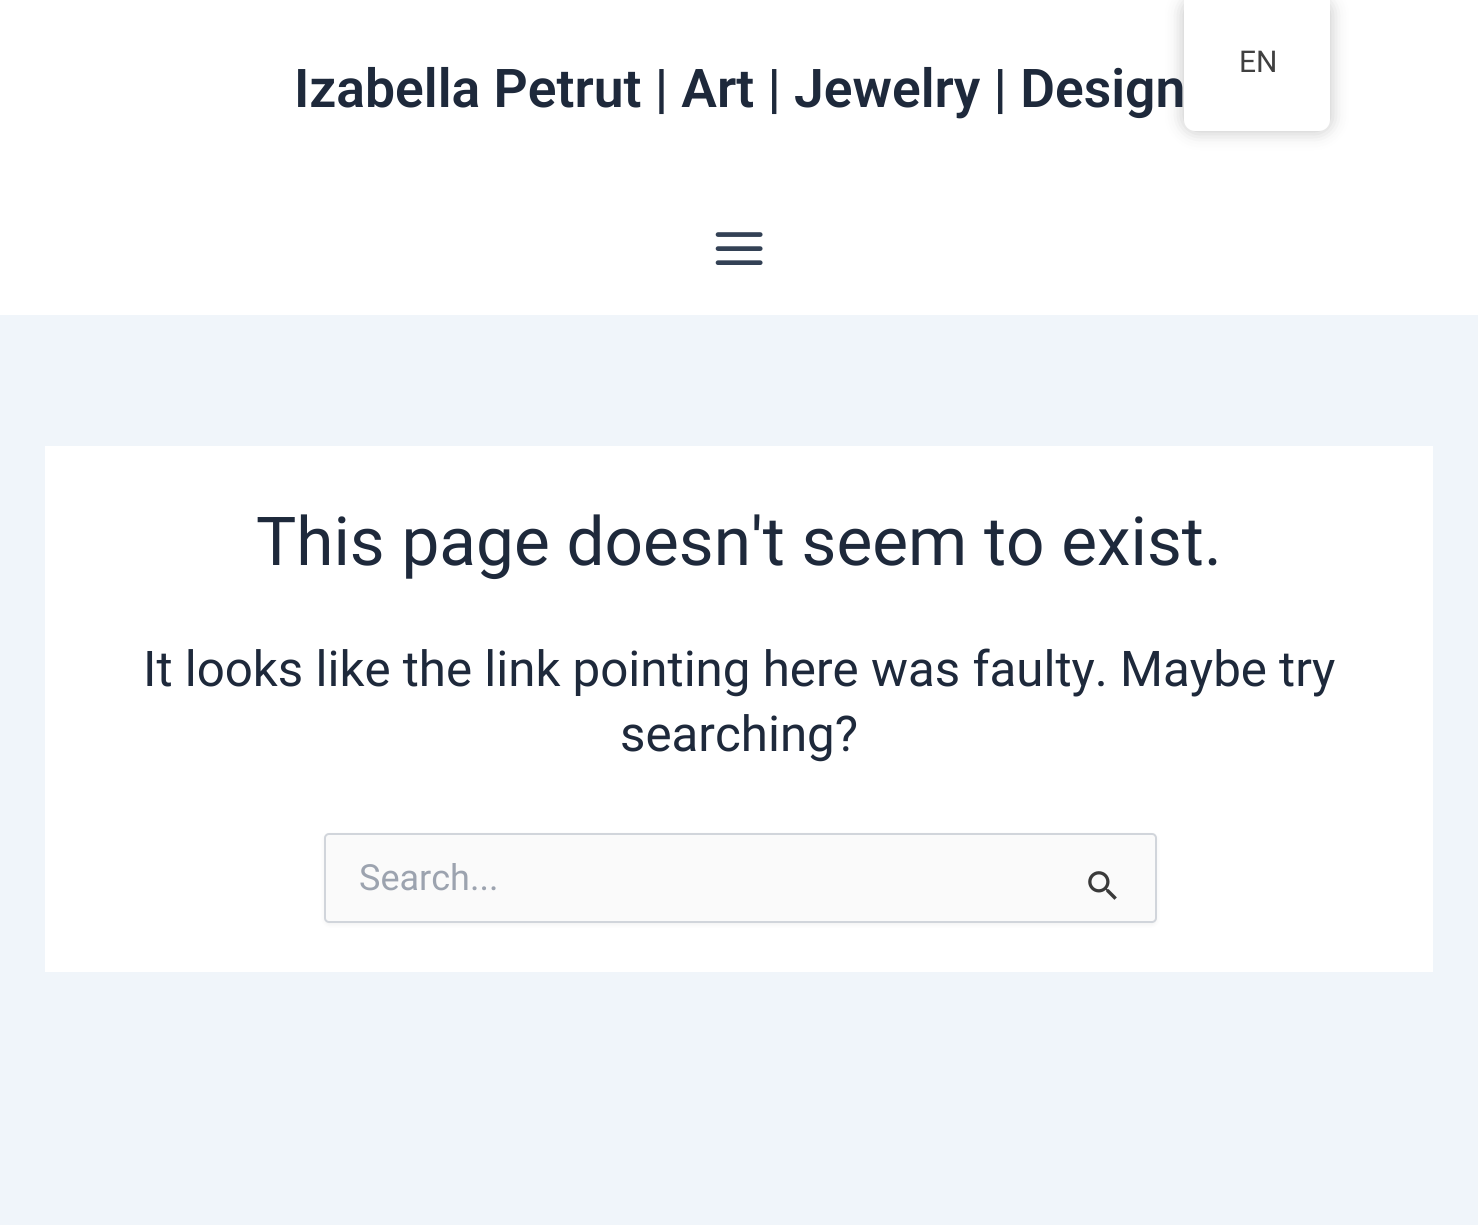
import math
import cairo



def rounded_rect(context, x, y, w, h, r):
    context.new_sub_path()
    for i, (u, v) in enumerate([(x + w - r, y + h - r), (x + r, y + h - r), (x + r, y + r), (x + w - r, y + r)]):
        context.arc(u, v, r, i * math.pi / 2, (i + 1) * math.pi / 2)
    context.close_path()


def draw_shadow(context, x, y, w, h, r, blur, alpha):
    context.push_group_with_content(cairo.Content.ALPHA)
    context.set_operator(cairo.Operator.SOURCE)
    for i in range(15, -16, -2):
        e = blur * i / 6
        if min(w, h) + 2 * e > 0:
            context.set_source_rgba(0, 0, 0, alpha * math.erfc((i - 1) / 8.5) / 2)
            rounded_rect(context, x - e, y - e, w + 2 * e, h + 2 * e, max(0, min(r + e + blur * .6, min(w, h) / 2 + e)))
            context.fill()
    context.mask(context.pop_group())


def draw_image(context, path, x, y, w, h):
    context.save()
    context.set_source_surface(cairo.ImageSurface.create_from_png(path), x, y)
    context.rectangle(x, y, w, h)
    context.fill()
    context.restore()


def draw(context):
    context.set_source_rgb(240 / 255, 245 / 255, 250 / 255)
    context.paint()
    context.set_source_rgb(1, 1, 1)
    context.rectangle(0, 0, 1478, 315)
    context.fill()
    context.set_source_rgb(0, 0, 0)
    draw_shadow(context, 1184, 0, 146, 131, 11, 9, 0.25)
    context.set_source_rgb(1, 1, 1)
    context.new_path()
    context.move_to(1184, 0)
    context.line_to(1330, 0)
    context.line_to(1330, 120)
    context.curve_to(1330, 126, 1325, 131, 1319, 131)
    context.line_to(1195, 131)
    context.curve_to(1189, 131, 1184, 126, 1184, 120)
    context.close_path()
    context.fill()
    draw_image(context, "images/1.png", 715, 232, 48, 33)
    context.rectangle(45, 446, 1388, 526)
    context.fill()
    context.set_source_rgb(0, 0, 0)
    draw_shadow(context, 324, 835, 833, 90, 5, 2, 0.05)
    context.set_source_rgb(250 / 255, 250 / 255, 250 / 255)
    rounded_rect(context, 325, 834, 831, 88, 4)
    context.fill_preserve()
    context.set_source_rgb(209 / 255, 213 / 255, 219 / 255)
    context.stroke()
    draw_image(context, "images/2.png", 1088, 871, 29, 29)
    context.select_font_face("Roboto")
    context.set_font_size(30)
    context.set_source_rgb(64 / 255, 64 / 255, 64 / 255)
    context.move_to(1239, 72)
    context.show_text("EN")
    context.select_font_face("Roboto SemiBold")
    context.set_font_size(53.4)
    context.set_source_rgb(30 / 255, 41 / 255, 59 / 255)
    context.move_to(294, 107)
    context.show_text("Izabella Petrut | Art | Jewelry | Design")
    context.select_font_face("Roboto")
    context.set_font_size(67.5)
    context.move_to(256, 565)
    context.show_text("This page doesn't seem to exist.")
    context.set_font_size(49.25)
    context.move_to(143, 686)
    context.show_text("It looks like the link pointing here was faulty. Maybe try")
    context.move_to(620, 751)
    context.show_text("searching?")
    context.set_font_size(36)
    context.set_source_rgb(156 / 255, 163 / 255, 175 / 255)
    context.move_to(359, 890)
    context.show_text("Search...")


surface = cairo.ImageSurface(cairo.Format.RGB24, 1478, 1225)
context = cairo.Context(surface)
options = cairo.FontOptions()
options.set_hint_metrics(cairo.HintMetrics.OFF)
options.set_hint_style(cairo.HintStyle.NONE)
context.set_font_options(options)
context.set_miter_limit(4)
draw(context)
surface.write_to_png("out.png")
